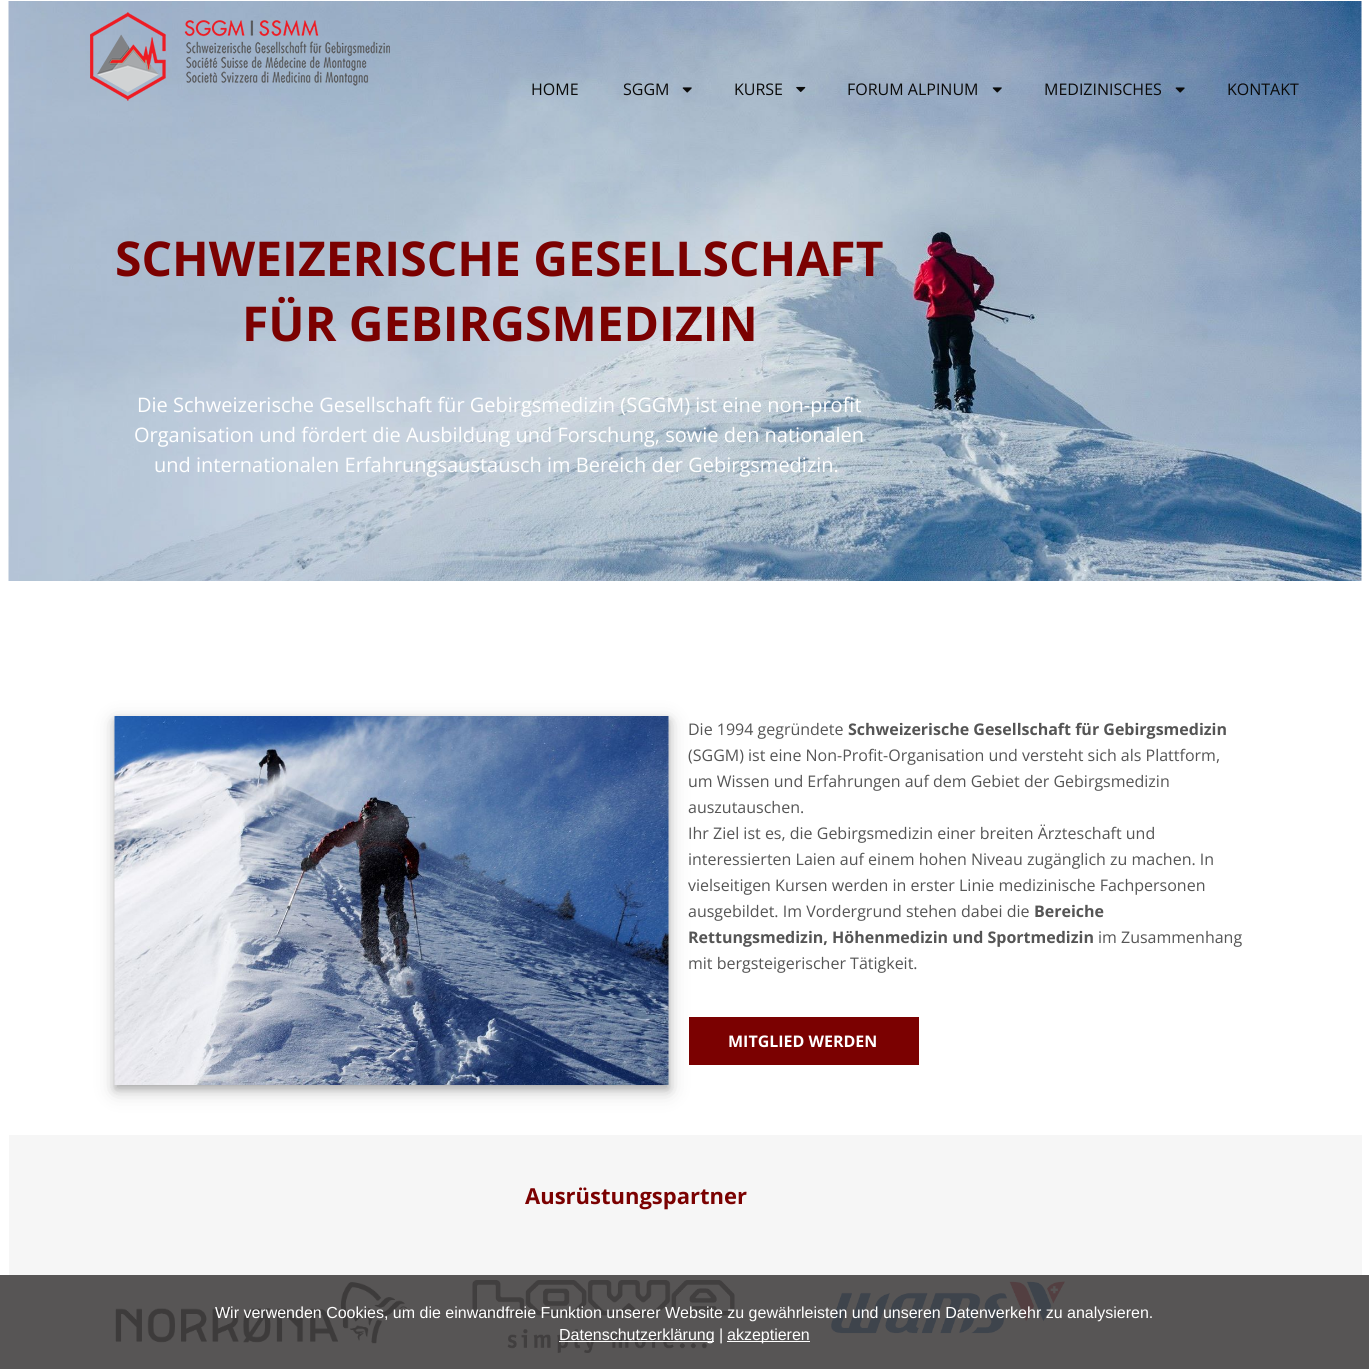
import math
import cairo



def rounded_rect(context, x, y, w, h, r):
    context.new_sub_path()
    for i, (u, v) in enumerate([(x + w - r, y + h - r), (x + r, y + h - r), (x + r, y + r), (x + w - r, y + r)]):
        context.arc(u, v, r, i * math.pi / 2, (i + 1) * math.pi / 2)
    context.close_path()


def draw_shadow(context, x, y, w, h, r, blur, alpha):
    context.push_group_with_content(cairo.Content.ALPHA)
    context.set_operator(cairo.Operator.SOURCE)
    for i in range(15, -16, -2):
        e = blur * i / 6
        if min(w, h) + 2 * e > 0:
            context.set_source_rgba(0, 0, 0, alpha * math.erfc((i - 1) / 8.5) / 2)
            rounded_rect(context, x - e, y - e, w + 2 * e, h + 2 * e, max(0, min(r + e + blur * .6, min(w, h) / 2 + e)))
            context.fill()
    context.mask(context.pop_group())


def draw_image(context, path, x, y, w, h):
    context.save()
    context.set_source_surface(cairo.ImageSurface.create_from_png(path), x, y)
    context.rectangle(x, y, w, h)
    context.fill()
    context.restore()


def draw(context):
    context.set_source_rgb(1, 1, 1)
    context.paint()
    context.set_source_rgb(87 / 255, 85 / 255, 85 / 255)
    context.rectangle(0, 1275, 1369, 94)
    context.fill()
    draw_image(context, "images/6.png", 8, 1, 1354, 580)
    draw_image(context, "images/1.png", 90, 12, 300, 89)
    draw_image(context, "images/2.png", 682, 87, 10, 6)
    draw_image(context, "images/3.png", 796, 86, 10, 6)
    draw_image(context, "images/4.png", 992, 87, 10, 6)
    draw_image(context, "images/5.png", 1175, 87, 10, 6)
    context.set_source_rgb(0, 0, 0)
    draw_shadow(context, 115, 722, 554, 369, 0, 10, 0.19)
    draw_shadow(context, 115, 720, 554, 369, 0, 4, 0.2)
    draw_image(context, "images/7.png", 114, 716, 555, 369)
    context.set_source_rgb(123 / 255, 1 / 255, 1 / 255)
    context.rectangle(689, 1017, 230, 48)
    context.fill()
    context.set_source_rgb(246 / 255, 246 / 255, 246 / 255)
    context.rectangle(9, 1135, 1353, 140)
    context.fill()
    draw_image(context, "images/8.png", 115, 1282, 294, 62)
    draw_image(context, "images/9.png", 472, 1280, 263, 73)
    draw_image(context, "images/10.png", 831, 1281, 234, 53)
    context.set_source_rgb(1, 1, 1)
    context.rectangle(559, 1341, 155, 1)
    context.fill()
    context.rectangle(727, 1341, 83, 1)
    context.fill()
    context.select_font_face("Open Sans")
    context.set_font_size(16)
    context.set_source_rgb(10 / 255, 10 / 255, 10 / 255)
    context.move_to(531, 95)
    context.show_text("HOME")
    context.move_to(623, 95)
    context.show_text("SGGM")
    context.move_to(734, 95)
    context.show_text("KURSE")
    context.move_to(847, 95)
    context.show_text("FORUM ALPINUM")
    context.move_to(1044, 95)
    context.show_text("MEDIZINISCHES")
    context.move_to(1227, 95)
    context.show_text("KONTAKT")
    context.select_font_face("Open Sans", cairo.FontSlant.NORMAL, cairo.FontWeight.BOLD)
    context.set_font_size(48)
    context.set_source_rgb(123 / 255, 1 / 255, 1 / 255)
    context.move_to(115, 276)
    context.show_text("SCHWEIZERISCHE GESELLSCHAFT")
    context.move_to(242, 341)
    context.show_text("FÜR GEBIRGSMEDIZIN")
    context.select_font_face("Open Sans")
    context.set_font_size(20)
    context.set_source_rgb(1, 1, 1)
    context.move_to(137, 412)
    context.show_text("Die Schweizerische Gesellschaft für Gebirgsmedizin (SGGM) ist eine non-profit")
    context.move_to(134, 442)
    context.show_text("Organisation und fördert die Ausbildung und Forschung, sowie den nationalen")
    context.move_to(154, 472)
    context.show_text("und internationalen Erfahrungsaustausch im Bereich der Gebirgsmedizin.")
    context.set_font_size(16)
    context.set_source_rgb(85 / 255, 85 / 255, 85 / 255)
    context.move_to(688, 735)
    context.show_text("Die 1994 gegründete")
    context.select_font_face("Open Sans", cairo.FontSlant.NORMAL, cairo.FontWeight.BOLD)
    context.move_to(848, 735)
    context.show_text("Schweizerische Gesellschaft für Gebirgsmedizin")
    context.select_font_face("Open Sans")
    context.move_to(688, 761)
    context.show_text("(SGGM) ist eine Non-Profit-Organisation und versteht sich als Plattform,")
    context.move_to(688, 787)
    context.show_text("um Wissen und Erfahrungen auf dem Gebiet der Gebirgsmedizin")
    context.move_to(688, 813)
    context.show_text("auszutauschen.")
    context.move_to(688, 839)
    context.show_text("Ihr Ziel ist es, die Gebirgsmedizin einer breiten Ärzteschaft und")
    context.move_to(688, 865)
    context.show_text("interessierten Laien auf einem hohen Niveau zugänglich zu machen. In")
    context.move_to(688, 891)
    context.show_text("vielseitigen Kursen werden in erster Linie medizinische Fachpersonen")
    context.move_to(688, 917)
    context.show_text("ausgebildet. Im Vordergrund stehen dabei die")
    context.select_font_face("Open Sans", cairo.FontSlant.NORMAL, cairo.FontWeight.BOLD)
    context.move_to(1034, 917)
    context.show_text("Bereiche")
    context.move_to(688, 943)
    context.show_text("Rettungsmedizin, Höhenmedizin und Sportmedizin")
    context.select_font_face("Open Sans")
    context.move_to(1098, 943)
    context.show_text("im Zusammenhang")
    context.move_to(688, 969)
    context.show_text("mit bergsteigerischer Tätigkeit.")
    context.select_font_face("Open Sans", cairo.FontSlant.NORMAL, cairo.FontWeight.BOLD)
    context.set_source_rgb(1, 1, 1)
    context.move_to(728, 1047)
    context.show_text("MITGLIED WERDEN")
    context.set_font_size(22)
    context.set_source_rgb(123 / 255, 1 / 255, 1 / 255)
    context.move_to(525, 1204)
    context.show_text("Ausrüstungspartner")
    context.select_font_face("Liberation Sans")
    context.set_font_size(16)
    context.set_source_rgb(1, 1, 1)
    context.move_to(215, 1318)
    context.show_text("Wir verwenden Cookies, um die einwandfreie Funktion unserer Website zu gewährleisten und unseren Datenverkehr zu analysieren.")
    context.move_to(559, 1340)
    context.show_text("Datenschutzerklärung |")
    context.move_to(727, 1340)
    context.show_text("akzeptieren")


surface = cairo.ImageSurface(cairo.Format.RGB24, 1369, 1369)
context = cairo.Context(surface)
options = cairo.FontOptions()
options.set_hint_metrics(cairo.HintMetrics.OFF)
options.set_hint_style(cairo.HintStyle.NONE)
context.set_font_options(options)
context.set_miter_limit(4)
draw(context)
surface.write_to_png("out.png")
